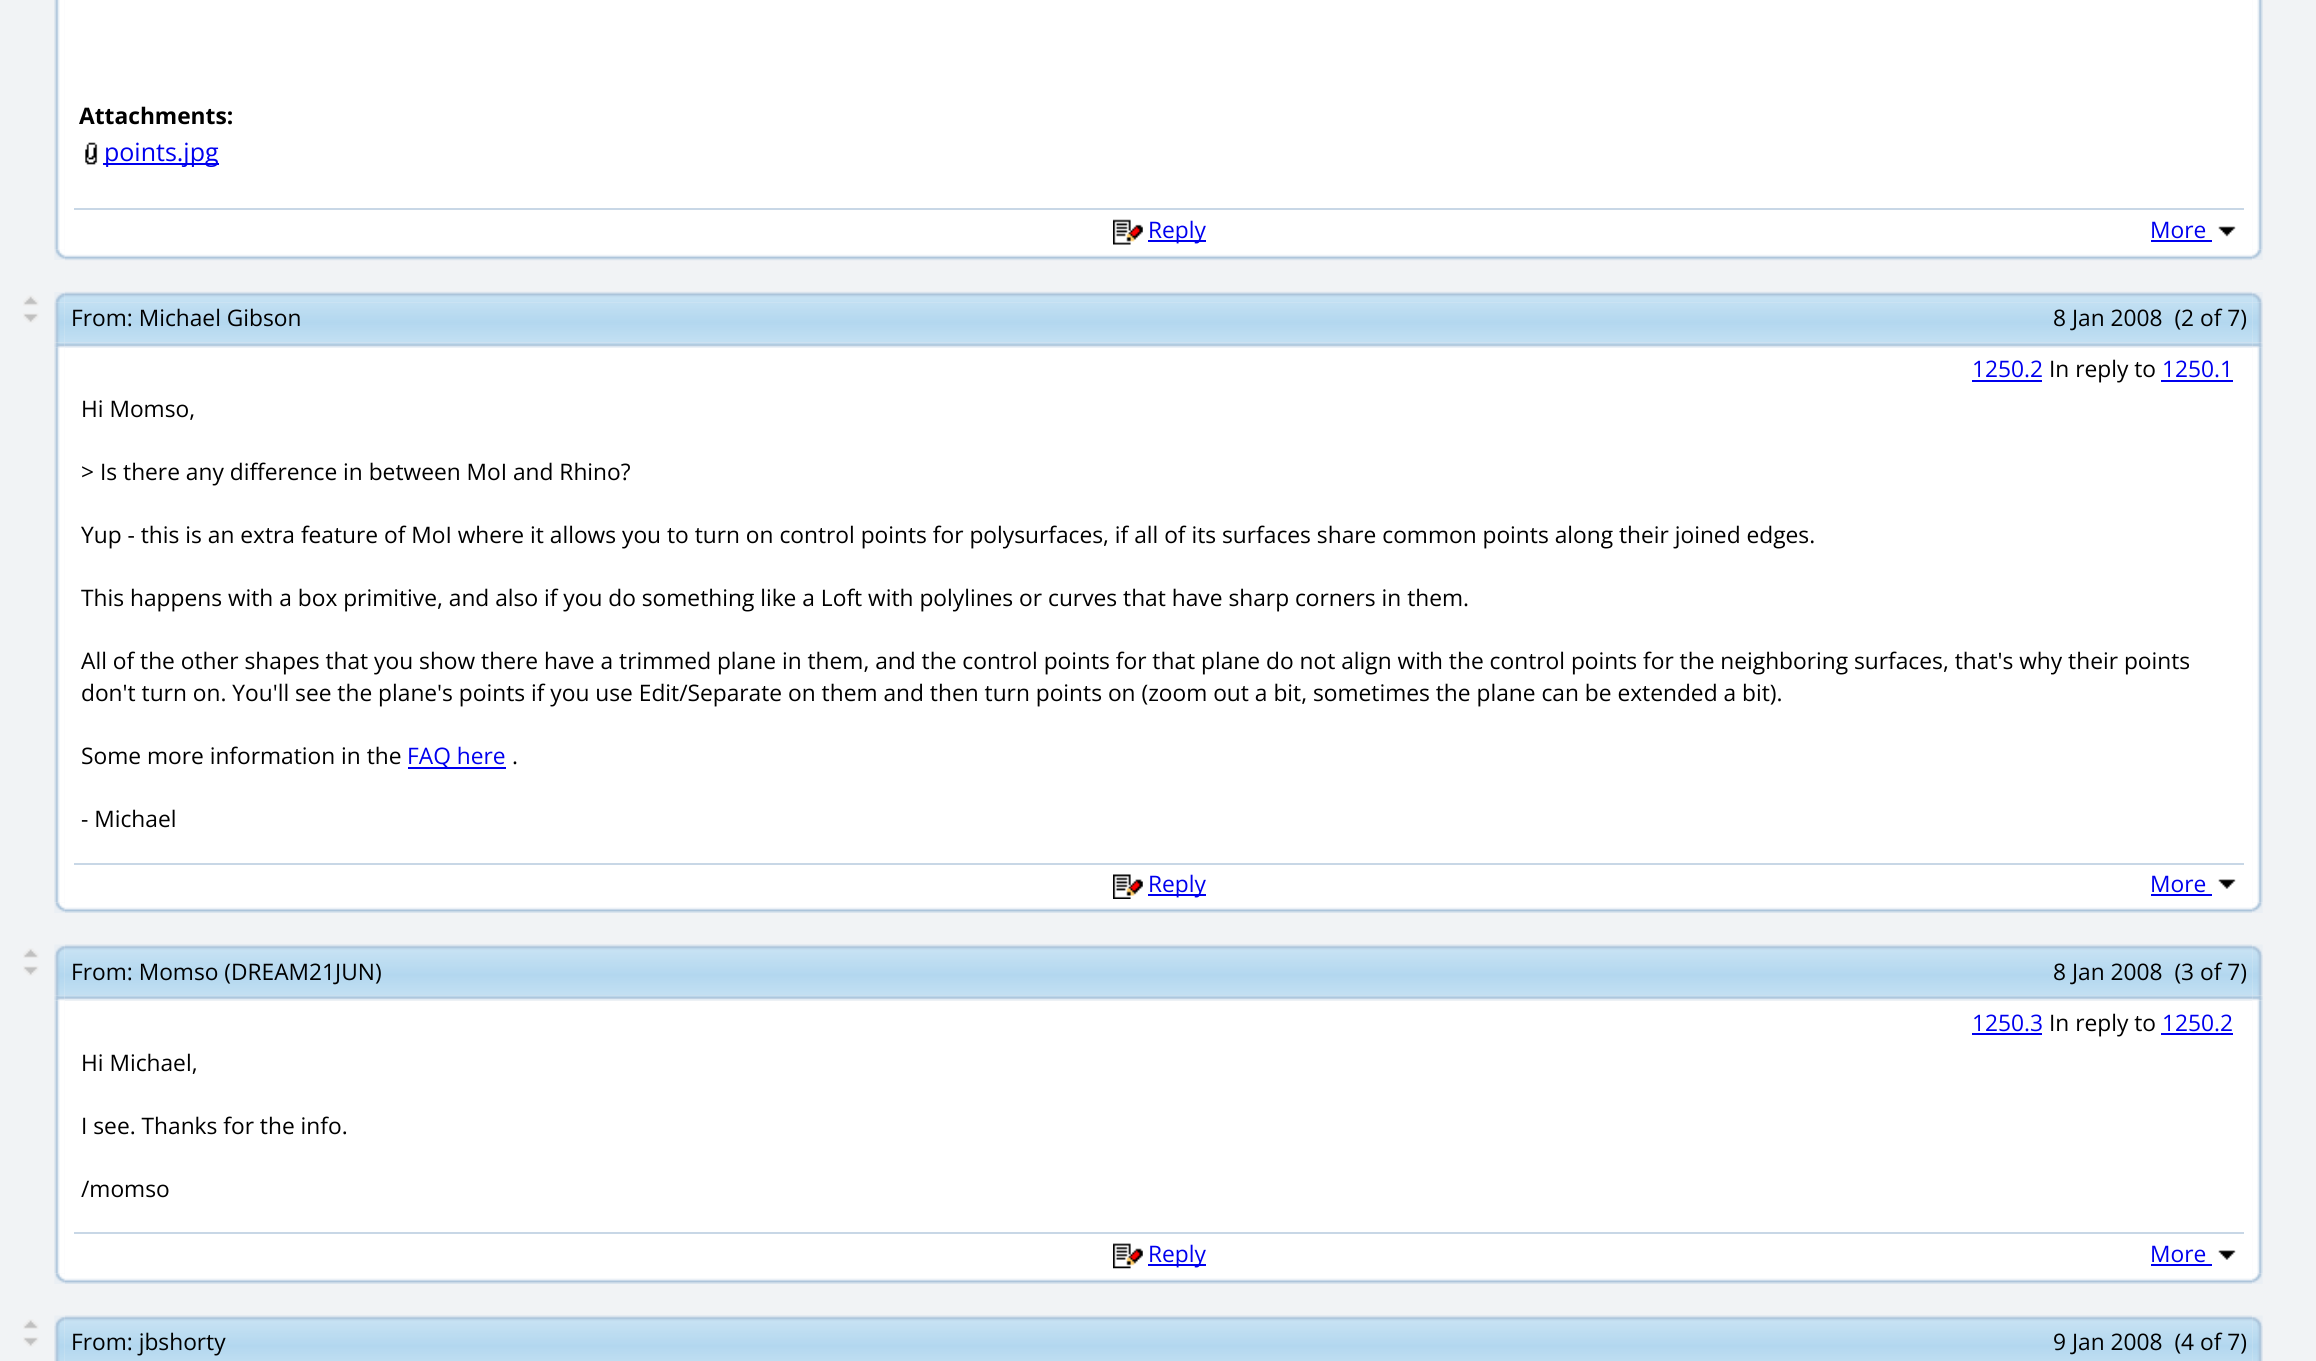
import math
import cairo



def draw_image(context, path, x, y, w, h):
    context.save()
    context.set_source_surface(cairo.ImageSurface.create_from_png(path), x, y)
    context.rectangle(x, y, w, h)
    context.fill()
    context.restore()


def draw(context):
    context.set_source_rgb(241 / 255, 243 / 255, 245 / 255)
    context.paint()
    draw_image(context, "images/1.png", 54, 0, 11, 250)
    context.set_source_rgb(1, 1, 1)
    context.rectangle(65, 0, 2187, 250)
    context.fill()
    draw_image(context, "images/2.png", 85, 142, 13, 23)
    context.set_source_rgb(0, 0, 238 / 255)
    context.rectangle(103, 163, 116, 2)
    context.fill()
    context.set_source_rgb(200 / 255, 215 / 255, 230 / 255)
    context.rectangle(74, 208, 2170, 2)
    context.fill()
    draw_image(context, "images/3.png", 1113, 219, 30, 26)
    context.set_source_rgb(0, 0, 238 / 255)
    context.rectangle(1148, 240, 58, 2)
    context.fill()
    context.rectangle(2151, 240, 61, 2)
    context.fill()
    draw_image(context, "images/4.png", 2218, 226, 18, 11)
    draw_image(context, "images/5.png", 2252, 0, 11, 250)
    draw_image(context, "images/6.png", 54, 249, 11, 11)
    draw_image(context, "images/7.png", 64, 250, 2189, 11)
    draw_image(context, "images/8.png", 2252, 249, 11, 11)
    draw_image(context, "images/9.png", 23, 295, 16, 11)
    draw_image(context, "images/10.png", 23, 313, 16, 10)
    draw_image(context, "images/11.png", 54, 292, 11, 11)
    draw_image(context, "images/12.png", 64, 291, 2189, 12)
    draw_image(context, "images/13.png", 2252, 292, 11, 11)
    draw_image(context, "images/15.png", 64, 302, 2189, 41)
    draw_image(context, "images/17.png", 54, 342, 11, 6)
    draw_image(context, "images/18.png", 64, 342, 2189, 6)
    draw_image(context, "images/14.png", 54, 302, 11, 41)
    draw_image(context, "images/19.png", 2252, 342, 11, 6)
    draw_image(context, "images/16.png", 2252, 302, 11, 41)
    draw_image(context, "images/20.png", 54, 347, 11, 556)
    context.set_source_rgb(1, 1, 1)
    context.rectangle(65, 348, 2187, 555)
    context.fill()
    context.set_source_rgb(0, 0, 238 / 255)
    context.rectangle(1972, 380, 70, 2)
    context.fill()
    context.rectangle(2161, 380, 72, 2)
    context.fill()
    context.rectangle(408, 767, 98, 2)
    context.fill()
    context.set_source_rgb(200 / 255, 215 / 255, 230 / 255)
    context.rectangle(74, 863, 2170, 2)
    context.fill()
    draw_image(context, "images/21.png", 1113, 874, 30, 25)
    context.set_source_rgb(0, 0, 238 / 255)
    context.rectangle(1148, 894, 58, 2)
    context.fill()
    context.rectangle(2151, 894, 61, 2)
    context.fill()
    draw_image(context, "images/22.png", 2218, 879, 18, 10)
    draw_image(context, "images/23.png", 2252, 347, 11, 556)
    draw_image(context, "images/24.png", 54, 902, 11, 11)
    draw_image(context, "images/25.png", 64, 903, 2189, 10)
    draw_image(context, "images/26.png", 2252, 902, 11, 11)
    draw_image(context, "images/27.png", 23, 948, 16, 10)
    draw_image(context, "images/28.png", 23, 966, 16, 10)
    draw_image(context, "images/29.png", 54, 944, 11, 11)
    draw_image(context, "images/30.png", 64, 944, 2189, 11)
    draw_image(context, "images/31.png", 2252, 944, 11, 11)
    draw_image(context, "images/33.png", 64, 955, 2189, 41)
    draw_image(context, "images/35.png", 54, 995, 11, 6)
    draw_image(context, "images/32.png", 54, 955, 11, 41)
    draw_image(context, "images/34.png", 2252, 955, 11, 40)
    draw_image(context, "images/36.png", 65, 995, 2188, 6)
    draw_image(context, "images/37.png", 2252, 995, 11, 6)
    draw_image(context, "images/38.png", 54, 1000, 11, 274)
    context.set_source_rgb(1, 1, 1)
    context.rectangle(65, 1001, 2187, 273)
    context.fill()
    context.set_source_rgb(0, 0, 238 / 255)
    context.rectangle(1972, 1033, 70, 2)
    context.fill()
    context.rectangle(2161, 1033, 72, 2)
    context.fill()
    context.set_source_rgb(200 / 255, 215 / 255, 230 / 255)
    context.rectangle(74, 1232, 2170, 2)
    context.fill()
    draw_image(context, "images/39.png", 1113, 1243, 30, 26)
    context.set_source_rgb(0, 0, 238 / 255)
    context.rectangle(1148, 1264, 58, 2)
    context.fill()
    context.rectangle(2151, 1264, 61, 2)
    context.fill()
    draw_image(context, "images/22.png", 2218, 1250, 18, 10)
    draw_image(context, "images/40.png", 2252, 1000, 11, 274)
    draw_image(context, "images/24.png", 54, 1273, 11, 11)
    draw_image(context, "images/41.png", 64, 1274, 2189, 10)
    draw_image(context, "images/26.png", 2252, 1273, 11, 11)
    draw_image(context, "images/27.png", 23, 1319, 16, 10)
    draw_image(context, "images/28.png", 23, 1337, 16, 10)
    draw_image(context, "images/29.png", 54, 1315, 11, 11)
    draw_image(context, "images/30.png", 64, 1315, 2189, 11)
    draw_image(context, "images/31.png", 2252, 1315, 11, 11)
    draw_image(context, "images/43.png", 64, 1326, 2189, 35)
    draw_image(context, "images/42.png", 54, 1326, 11, 35)
    draw_image(context, "images/44.png", 2252, 1326, 11, 35)
    context.select_font_face("Open Sans", cairo.FontSlant.NORMAL, cairo.FontWeight.BOLD)
    context.set_font_size(22.75)
    context.set_source_rgb(0, 0, 0)
    context.move_to(79, 124)
    context.show_text("Attachments:")
    context.select_font_face("Open Sans")
    context.set_font_size(25)
    context.set_source_rgb(0, 0, 238 / 255)
    context.move_to(104, 161)
    context.show_text("points.jpg")
    context.set_font_size(22.75)
    context.move_to(1148, 238)
    context.show_text("Reply")
    context.move_to(2150, 238)
    context.show_text("More")
    context.set_source_rgb(0, 0, 0)
    context.move_to(71, 326)
    context.show_text("From: Michael Gibson")
    context.move_to(2053, 326)
    context.show_text("8 Jan 2008  (2 of 7)")
    context.set_source_rgb(0, 0, 238 / 255)
    context.move_to(1972, 377)
    context.show_text("1250.2")
    context.set_source_rgb(0, 0, 0)
    context.move_to(2049, 377)
    context.show_text("In reply to")
    context.set_source_rgb(0, 0, 238 / 255)
    context.move_to(2162, 377)
    context.show_text("1250.1")
    context.set_source_rgb(0, 0, 0)
    context.move_to(81, 417)
    context.show_text("Hi Momso,")
    context.move_to(81, 480)
    context.show_text("> Is there any difference in between MoI and Rhino?")
    context.move_to(81, 543)
    context.show_text("Yup - this is an extra feature of MoI where it allows you to turn on control points for polysurfaces, if all of its surfaces share common points along their joined edges.")
    context.move_to(81, 606)
    context.show_text("This happens with a box primitive, and also if you do something like a Loft with polylines or curves that have sharp corners in them.")
    context.move_to(81, 669)
    context.show_text("All of the other shapes that you show there have a trimmed plane in them, and the control points for that plane do not align with the control points for the neighboring surfaces, that's why their points")
    context.move_to(81, 701)
    context.show_text("don't turn on. You'll see the plane's points if you use Edit/Separate on them and then turn points on (zoom out a bit, sometimes the plane can be extended a bit).")
    context.move_to(81, 764)
    context.show_text("Some more information in the")
    context.set_source_rgb(0, 0, 238 / 255)
    context.move_to(407, 764)
    context.show_text("FAQ here")
    context.set_source_rgb(0, 0, 0)
    context.move_to(512, 764)
    context.show_text(".")
    context.move_to(81, 827)
    context.show_text("- Michael")
    context.set_source_rgb(0, 0, 238 / 255)
    context.move_to(1148, 892)
    context.show_text("Reply")
    context.move_to(2150, 892)
    context.show_text("More")
    context.set_source_rgb(0, 0, 0)
    context.move_to(71, 980)
    context.show_text("From: Momso (DREAM21JUN)")
    context.move_to(2053, 980)
    context.show_text("8 Jan 2008  (3 of 7)")
    context.set_source_rgb(0, 0, 238 / 255)
    context.move_to(1972, 1031)
    context.show_text("1250.3")
    context.set_source_rgb(0, 0, 0)
    context.move_to(2049, 1031)
    context.show_text("In reply to")
    context.set_source_rgb(0, 0, 238 / 255)
    context.move_to(2162, 1031)
    context.show_text("1250.2")
    context.set_source_rgb(0, 0, 0)
    context.move_to(81, 1071)
    context.show_text("Hi Michael,")
    context.move_to(81, 1134)
    context.show_text("I see. Thanks for the info.")
    context.move_to(81, 1197)
    context.show_text("/momso")
    context.set_source_rgb(0, 0, 238 / 255)
    context.move_to(1148, 1262)
    context.show_text("Reply")
    context.move_to(2150, 1262)
    context.show_text("More")
    context.set_source_rgb(0, 0, 0)
    context.move_to(71, 1350)
    context.show_text("From: jbshorty")
    context.move_to(2053, 1350)
    context.show_text("9 Jan 2008  (4 of 7)")


surface = cairo.ImageSurface(cairo.Format.RGB24, 2316, 1361)
context = cairo.Context(surface)
options = cairo.FontOptions()
options.set_hint_metrics(cairo.HintMetrics.OFF)
options.set_hint_style(cairo.HintStyle.NONE)
context.set_font_options(options)
context.set_miter_limit(4)
draw(context)
surface.write_to_png("out.png")
